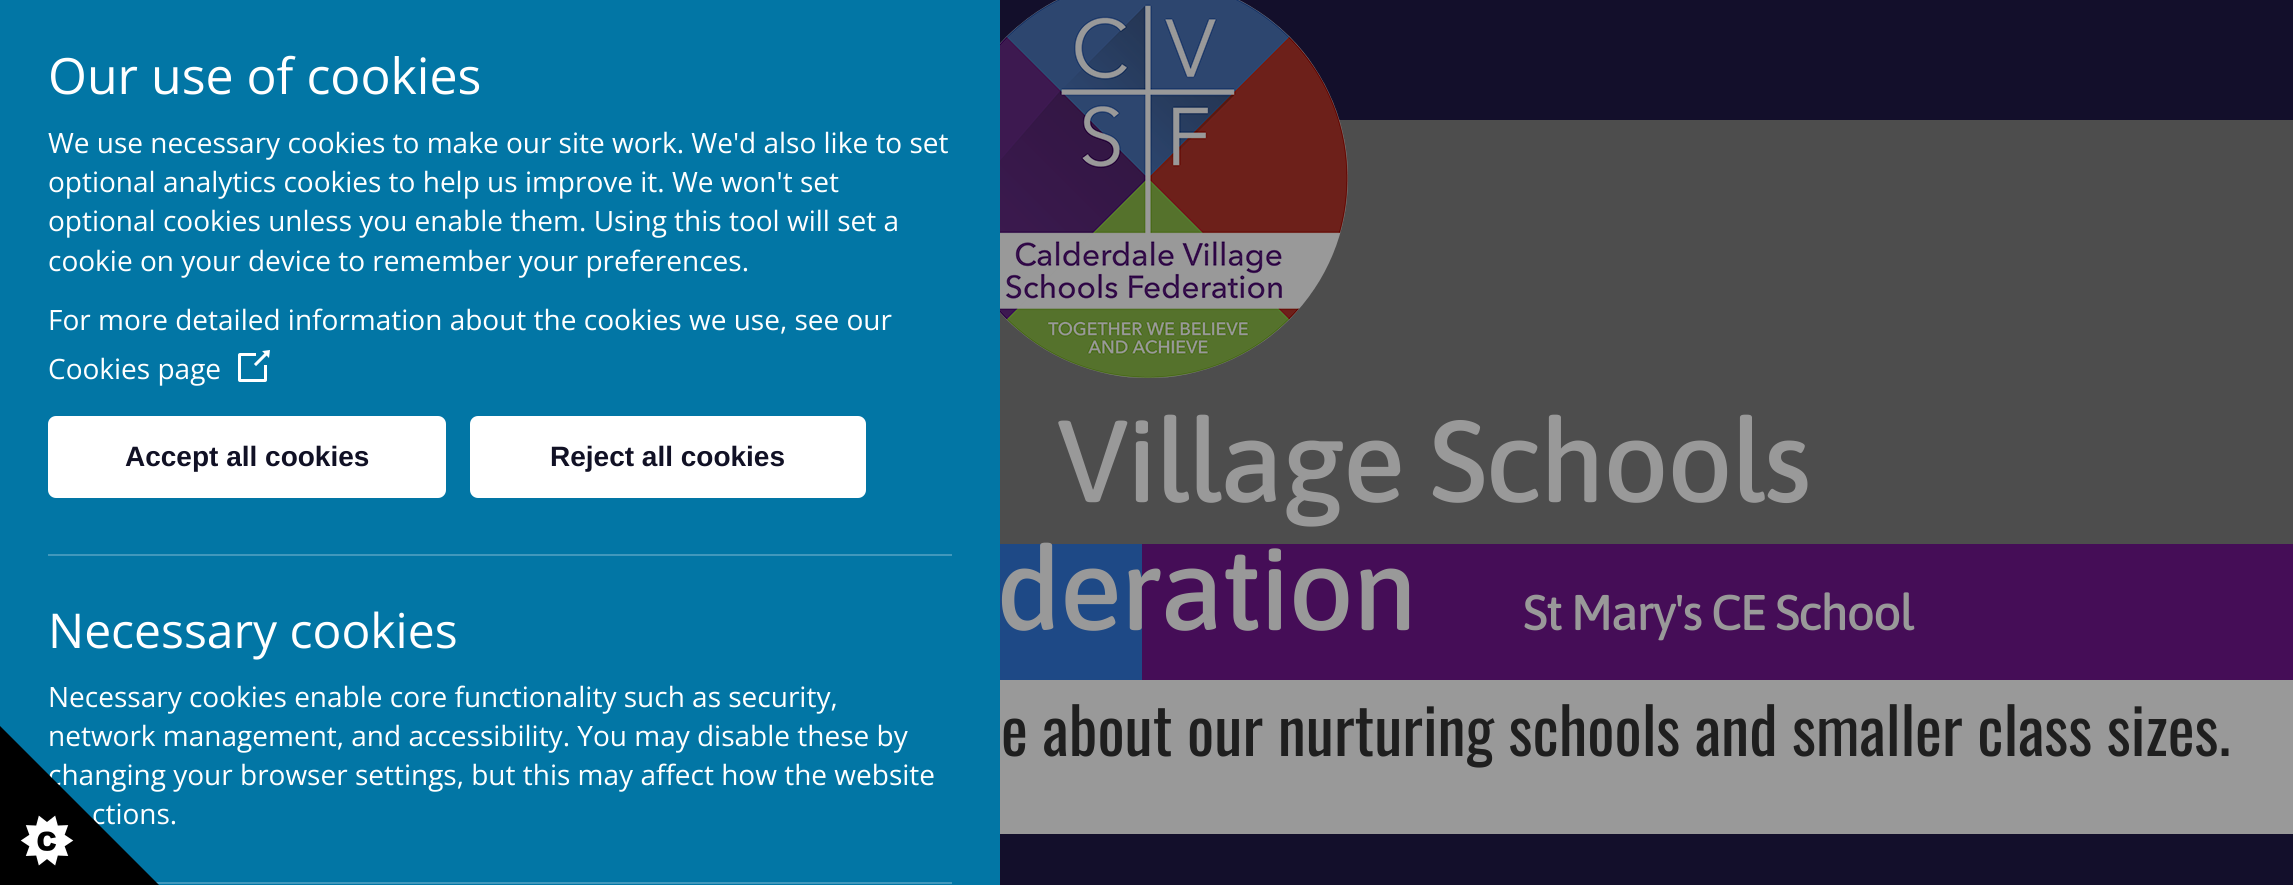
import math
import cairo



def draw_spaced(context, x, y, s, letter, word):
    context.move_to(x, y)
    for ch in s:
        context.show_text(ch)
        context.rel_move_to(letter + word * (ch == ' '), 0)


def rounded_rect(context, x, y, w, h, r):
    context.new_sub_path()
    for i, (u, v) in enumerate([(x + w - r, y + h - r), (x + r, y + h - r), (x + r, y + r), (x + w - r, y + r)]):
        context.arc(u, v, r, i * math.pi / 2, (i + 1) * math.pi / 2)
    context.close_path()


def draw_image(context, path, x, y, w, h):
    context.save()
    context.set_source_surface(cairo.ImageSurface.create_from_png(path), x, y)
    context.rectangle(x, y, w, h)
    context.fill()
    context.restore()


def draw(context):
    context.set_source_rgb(153 / 255, 153 / 255, 153 / 255)
    context.paint()
    context.set_source_rgb(19 / 255, 15 / 255, 43 / 255)
    context.rectangle(1000, 834, 1293, 51)
    context.fill()
    context.set_source_rgb(2 / 255, 118 / 255, 165 / 255)
    context.rectangle(0, 0, 1000, 885)
    context.fill()
    draw_image(context, "images/1.png", 238, 350, 32, 32)
    context.set_source_rgb(1, 1, 1)
    rounded_rect(context, 50, 418, 394, 78, 6)
    context.fill_preserve()
    context.set_line_width(4)
    context.stroke()
    rounded_rect(context, 472, 418, 392, 78, 6)
    context.fill_preserve()
    context.stroke()
    context.set_source_rgb(65 / 255, 152 / 255, 188 / 255)
    context.rectangle(48, 554, 904, 2)
    context.fill()
    context.rectangle(156, 882, 796, 2)
    context.fill()
    context.set_source_rgb(19 / 255, 15 / 255, 43 / 255)
    context.rectangle(1000, 0, 1293, 120)
    context.fill()
    context.set_source_rgb(77 / 255, 77 / 255, 77 / 255)
    context.rectangle(1000, 120, 1293, 424)
    context.fill()
    draw_image(context, "images/3.png", 1000, 0, 348, 378)
    context.set_source_rgb(30 / 255, 73 / 255, 134 / 255)
    context.rectangle(1000, 544, 142, 136)
    context.fill()
    context.set_source_rgb(69 / 255, 13 / 255, 87 / 255)
    context.rectangle(1142, 544, 1151, 136)
    context.fill()
    context.select_font_face("Open Sans")
    context.set_font_size(50)
    context.set_source_rgb(1, 1, 1)
    context.move_to(48, 94)
    context.show_text("Our use of cookies")
    context.set_font_size(28)
    context.move_to(48, 153)
    context.show_text("We use necessary cookies to make our site work. We'd also like to set")
    context.move_to(48, 192)
    context.show_text("optional analytics cookies to help us improve it. We won't set")
    context.move_to(48, 231)
    context.show_text("optional cookies unless you enable them. Using this tool will set a")
    context.move_to(48, 271)
    context.show_text("cookie on your device to remember your preferences.")
    context.move_to(48, 330)
    context.show_text("For more detailed information about the cookies we use, see our")
    context.move_to(48, 379)
    context.show_text("Cookies page")
    context.select_font_face("Liberation Sans", cairo.FontSlant.NORMAL, cairo.FontWeight.BOLD)
    context.set_source_rgb(17 / 255, 17 / 255, 37 / 255)
    context.move_to(125, 466)
    context.show_text("Accept all cookies")
    context.move_to(550, 466)
    context.show_text("Reject all cookies")
    context.select_font_face("Open Sans")
    context.set_font_size(48)
    context.set_source_rgb(1, 1, 1)
    context.move_to(48, 648)
    context.show_text("Necessary cookies")
    context.set_font_size(28)
    context.move_to(48, 707)
    context.show_text("Necessary cookies enable core functionality such as security,")
    context.move_to(48, 746)
    context.show_text("network management, and accessibility. You may disable these by")
    context.move_to(48, 785)
    context.show_text("changing your browser settings, but this may affect how the website")
    context.move_to(92, 824)
    context.show_text("ctions.")
    draw_image(context, "images/2.png", 0, 726, 159, 159)
    context.select_font_face("Asap Medium")
    context.set_font_size(116)
    context.set_source_rgb(153 / 255, 153 / 255, 153 / 255)
    draw_spaced(context, 1057, 502, "Village Schools", -2, 0)
    draw_spaced(context, 996, 630, "deration", -2, 0)
    context.set_font_size(50)
    draw_spaced(context, 1523, 630, "St Mary's CE School", -2, 0)
    context.select_font_face("Oswald")
    context.set_font_size(64)
    context.set_source_rgb(31 / 255, 31 / 255, 31 / 255)
    context.move_to(1001, 756)
    context.show_text("e about our nurturing schools and smaller class sizes.")


surface = cairo.ImageSurface(cairo.Format.RGB24, 2293, 885)
context = cairo.Context(surface)
options = cairo.FontOptions()
options.set_hint_metrics(cairo.HintMetrics.OFF)
options.set_hint_style(cairo.HintStyle.NONE)
context.set_font_options(options)
context.set_miter_limit(4)
draw(context)
surface.write_to_png("out.png")
